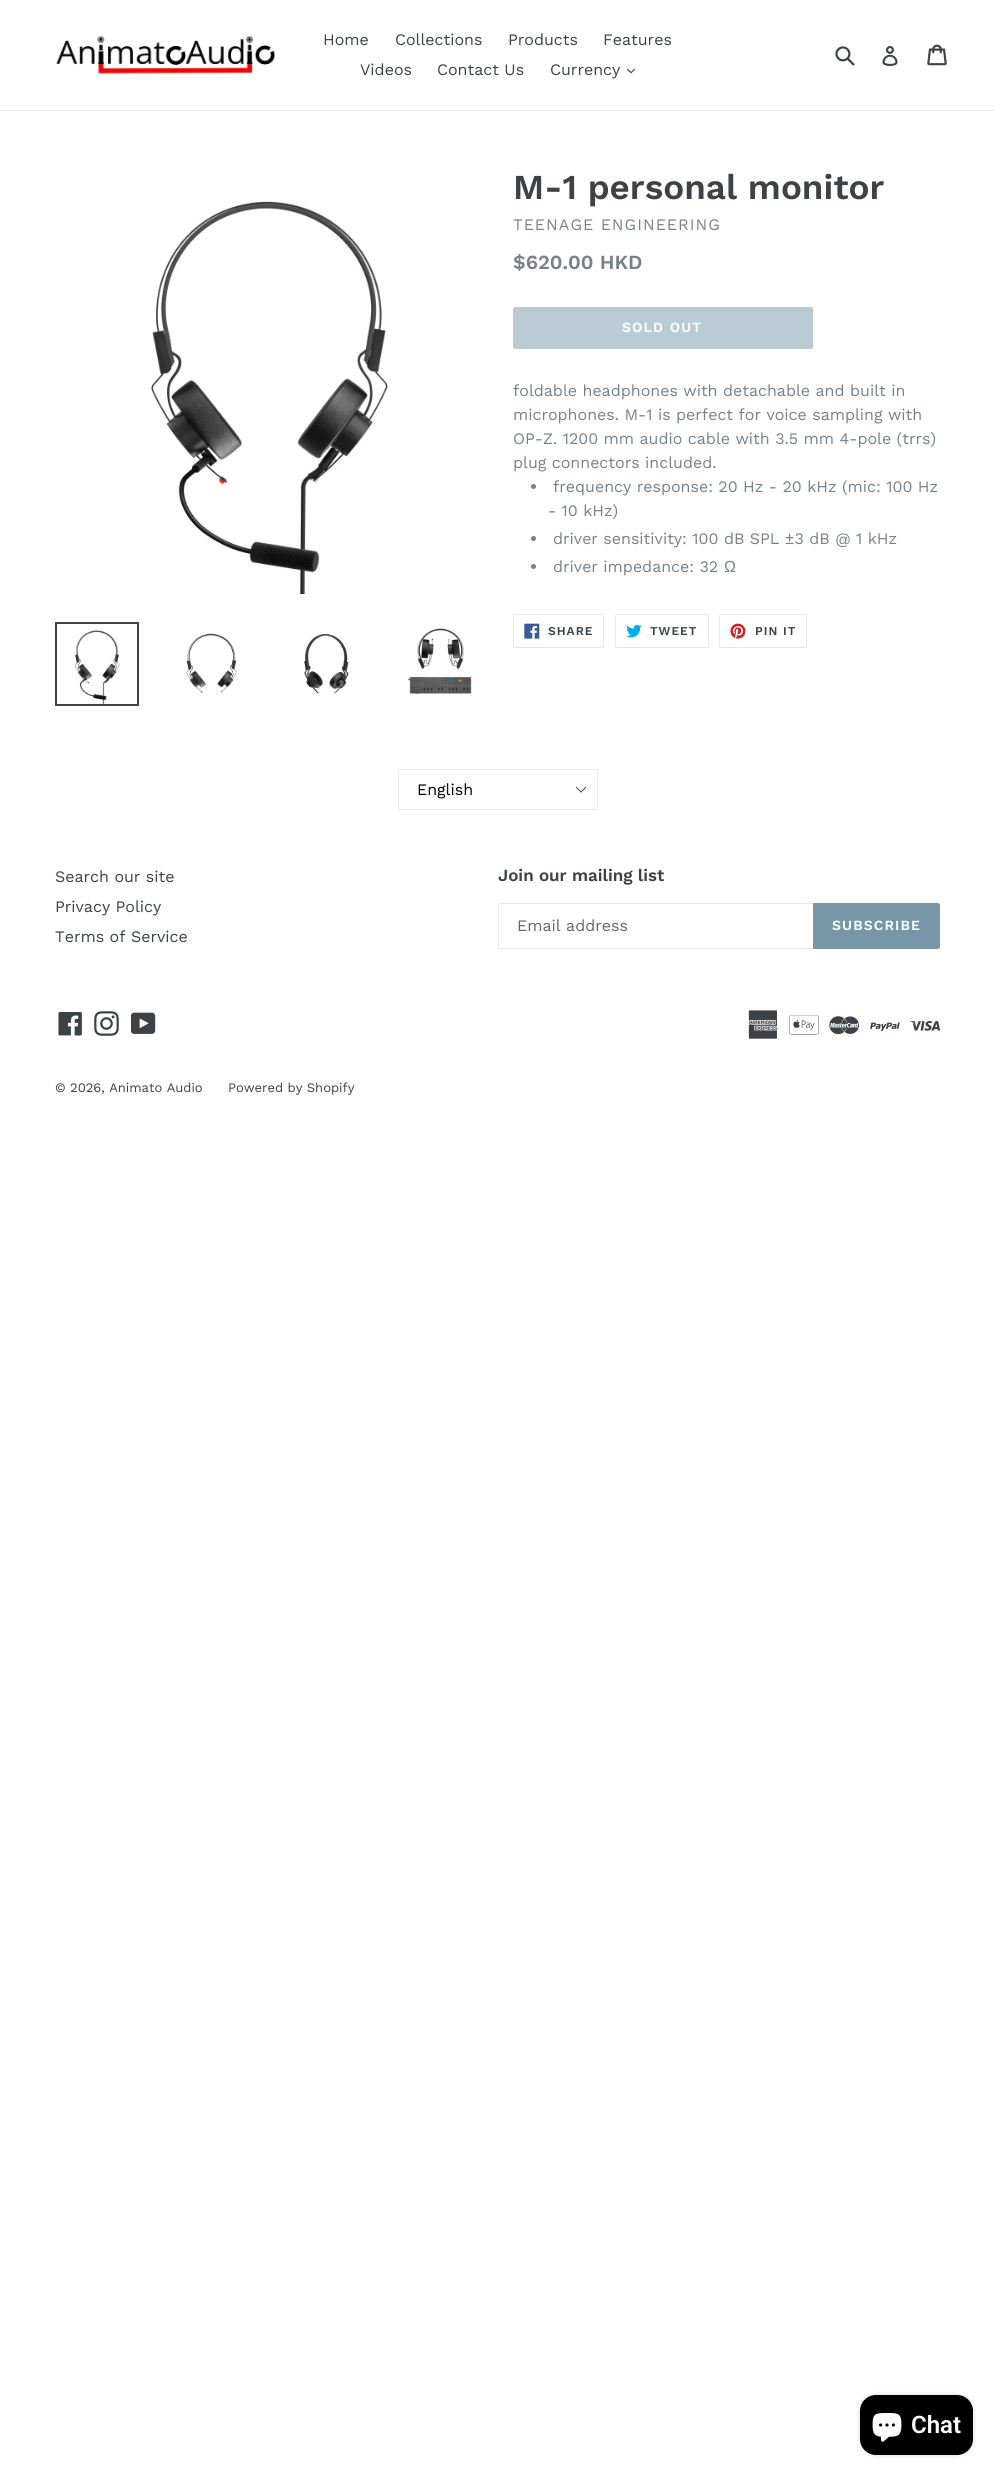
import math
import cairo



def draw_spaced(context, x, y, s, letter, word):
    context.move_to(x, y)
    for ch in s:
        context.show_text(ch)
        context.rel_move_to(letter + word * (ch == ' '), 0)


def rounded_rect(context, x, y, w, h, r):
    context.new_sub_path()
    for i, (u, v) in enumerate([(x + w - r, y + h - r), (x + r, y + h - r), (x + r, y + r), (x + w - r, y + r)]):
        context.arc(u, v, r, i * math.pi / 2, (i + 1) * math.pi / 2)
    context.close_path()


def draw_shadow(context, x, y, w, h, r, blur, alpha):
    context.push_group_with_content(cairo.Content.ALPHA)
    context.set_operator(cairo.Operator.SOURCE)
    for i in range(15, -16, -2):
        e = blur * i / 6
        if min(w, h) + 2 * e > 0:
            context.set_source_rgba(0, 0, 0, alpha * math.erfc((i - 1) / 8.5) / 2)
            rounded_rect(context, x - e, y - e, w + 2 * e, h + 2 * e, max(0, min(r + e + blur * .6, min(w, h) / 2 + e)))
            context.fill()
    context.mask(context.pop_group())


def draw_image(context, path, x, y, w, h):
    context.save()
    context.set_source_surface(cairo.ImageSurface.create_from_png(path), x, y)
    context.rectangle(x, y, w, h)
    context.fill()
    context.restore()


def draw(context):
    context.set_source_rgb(1, 1, 1)
    context.paint()
    context.set_source_rgb(232 / 255, 233 / 255, 235 / 255)
    context.rectangle(0, 110, 995, 1)
    context.fill()
    draw_image(context, "images/1.png", 56, 35, 220, 41)
    draw_image(context, "images/2.png", 627, 68, 8, 6)
    draw_image(context, "images/3.png", 835, 46, 20, 20)
    draw_image(context, "images/4.png", 882, 46, 16, 20)
    draw_image(context, "images/5.png", 927, 44, 20, 22)
    draw_image(context, "images/6.png", 151, 201, 237, 393)
    context.rectangle(56, 623, 82, 82)
    context.set_source_rgb(61 / 255, 66 / 255, 70 / 255)
    context.stroke()
    draw_image(context, "images/7.png", 74, 630, 46, 74)
    draw_image(context, "images/8.png", 186, 633, 51, 60)
    draw_image(context, "images/9.png", 304, 633, 45, 61)
    draw_image(context, "images/10.png", 407, 628, 65, 66)
    context.set_source_rgb(187 / 255, 203 / 255, 212 / 255)
    rounded_rect(context, 513, 307, 300, 42, 2)
    context.fill()
    context.set_source_rgb(120 / 255, 129 / 255, 136 / 255)
    context.arc(533.5, 486.5, 2.5, 0, 2 * math.pi)
    context.fill()
    context.arc(533.5, 538.5, 2.5, 0, 2 * math.pi)
    context.fill()
    context.arc(533.5, 566.5, 2.5, 0, 2 * math.pi)
    context.fill()
    rounded_rect(context, 513.5, 614.5, 90, 33, 1.5)
    context.set_source_rgb(232 / 255, 233 / 255, 235 / 255)
    context.set_line_width(1)
    context.stroke()
    draw_image(context, "images/11.png", 524, 623, 16, 16)
    rounded_rect(context, 615.5, 614.5, 93, 33, 1.5)
    context.stroke()
    draw_image(context, "images/12.png", 626, 624, 16, 14)
    rounded_rect(context, 719.5, 614.5, 87, 33, 1.5)
    context.stroke()
    draw_image(context, "images/13.png", 730, 623, 16, 16)
    draw_image(context, "images/14.png", 575, 786, 12, 7)
    rounded_rect(context, 398.5, 769.5, 199, 40, 1.5)
    context.stroke()
    context.rectangle(499, 903, 314, 1)
    context.fill()
    context.rectangle(499, 948, 314, 1)
    context.fill()
    context.rectangle(498, 904, 1, 44)
    context.fill()
    context.set_source_rgb(119 / 255, 150 / 255, 168 / 255)
    context.new_path()
    context.move_to(813, 903)
    context.line_to(938, 903)
    context.curve_to(939, 903, 940, 904, 940, 905)
    context.line_to(940, 947)
    context.curve_to(940, 948, 939, 949, 938, 949)
    context.line_to(813, 949)
    context.close_path()
    context.fill()
    draw_image(context, "images/15.png", 58, 1012, 24, 24)
    draw_image(context, "images/16.png", 94, 1011, 25, 25)
    draw_image(context, "images/17.png", 131, 1012, 25, 22)
    draw_image(context, "images/18.png", 748, 1010, 30, 29)
    draw_image(context, "images/19.png", 789, 1015, 30, 20)
    draw_image(context, "images/20.png", 829, 1016, 30, 19)
    draw_image(context, "images/21.png", 870, 1022, 30, 9)
    draw_image(context, "images/22.png", 910, 1021, 30, 10)
    context.set_source_rgb(0, 0, 0)
    draw_shadow(context, 860, 2395, 113, 60, 16, 2.5, 0.15)
    context.set_source_rgb(0, 0, 0)
    rounded_rect(context, 860, 2395, 113, 60, 16)
    context.fill()
    draw_image(context, "images/23.png", 872, 2413, 30, 29)
    context.select_font_face("Work Sans")
    context.set_font_size(16)
    context.set_source_rgb(61 / 255, 66 / 255, 70 / 255)
    context.move_to(323, 45)
    context.show_text("Home")
    context.move_to(395, 45)
    context.show_text("Collections")
    context.move_to(508, 45)
    context.show_text("Products")
    context.move_to(603, 45)
    context.show_text("Features")
    context.move_to(360, 75)
    context.show_text("Videos")
    context.move_to(437, 75)
    context.show_text("Contact Us")
    context.move_to(550, 75)
    context.show_text("Currency")
    context.select_font_face("Work Sans SemiBold")
    context.set_font_size(35)
    context.move_to(513, 199)
    context.show_text("M-1 personal monitor")
    context.select_font_face("Work Sans")
    context.set_font_size(16)
    context.set_source_rgb(120 / 255, 129 / 255, 136 / 255)
    draw_spaced(context, 513, 230, "TEENAGE ENGINEERING", 1, 0)
    context.select_font_face("Work Sans SemiBold")
    context.set_font_size(20)
    context.move_to(513, 269)
    context.show_text("$620.00 HKD")
    context.set_font_size(14)
    context.set_source_rgb(1, 1, 1)
    draw_spaced(context, 622, 332, "SOLD OUT", 1.1, 0)
    context.select_font_face("Work Sans")
    context.set_font_size(16)
    context.set_source_rgb(120 / 255, 129 / 255, 136 / 255)
    context.move_to(513, 396)
    context.show_text("foldable headphones with detachable and built in")
    context.move_to(513, 420)
    context.show_text("microphones. M-1 is perfect for voice sampling with")
    context.move_to(513, 444)
    context.show_text("OP-Z. 1200 mm audio cable with 3.5 mm 4-pole (trrs)")
    context.move_to(513, 468)
    context.show_text("plug connectors included.")
    context.move_to(553, 492)
    context.show_text("frequency response: 20 Hz - 20 kHz (mic: 100 Hz")
    context.move_to(548, 516)
    context.show_text("- 10 kHz)")
    context.move_to(553, 544)
    context.show_text("driver sensitivity: 100 dB SPL ±3 dB @ 1 kHz")
    context.move_to(553, 572)
    context.show_text("driver impedance: 32")
    context.select_font_face("Liberation Sans")
    context.move_to(724, 572)
    context.show_text("Ω")
    context.select_font_face("Work Sans SemiBold")
    context.set_font_size(12)
    context.set_source_rgb(61 / 255, 66 / 255, 70 / 255)
    draw_spaced(context, 548, 635, "SHARE", 1, 0)
    draw_spaced(context, 650, 635, "TWEET", 1, 0)
    draw_spaced(context, 755, 635, "PIN IT", 1, 0)
    context.select_font_face("Work Sans")
    context.set_font_size(16)
    context.set_source_rgb(0, 0, 0)
    context.move_to(417, 795)
    context.show_text("English")
    context.set_source_rgb(61 / 255, 66 / 255, 70 / 255)
    context.move_to(55, 882)
    context.show_text("Search our site")
    context.move_to(55, 912)
    context.show_text("Privacy Policy")
    context.move_to(55, 942)
    context.show_text("Terms of Service")
    context.select_font_face("Work Sans SemiBold")
    context.set_font_size(17)
    context.move_to(498, 881)
    context.show_text("Join our mailing list")
    context.select_font_face("Work Sans")
    context.set_font_size(16)
    context.set_source_rgb(102 / 255, 102 / 255, 102 / 255)
    context.move_to(517, 931)
    context.show_text("Email address")
    context.select_font_face("Work Sans SemiBold")
    context.set_font_size(14)
    context.set_source_rgb(1, 1, 1)
    draw_spaced(context, 832, 930, "SUBSCRIBE", 1.1, 0)
    context.select_font_face("Work Sans")
    context.set_font_size(13)
    context.set_source_rgb(61 / 255, 66 / 255, 70 / 255)
    context.move_to(55, 1092)
    context.show_text("© 2026, Animato Audio")
    context.move_to(228, 1092)
    context.show_text("Powered by Shopify")
    context.select_font_face("Roboto SemiBold")
    context.set_font_size(24)
    context.set_source_rgb(1, 1, 1)
    context.move_to(911, 2433)
    context.show_text("Chat")


surface = cairo.ImageSurface(cairo.Format.RGB24, 995, 2476)
context = cairo.Context(surface)
options = cairo.FontOptions()
options.set_hint_metrics(cairo.HintMetrics.OFF)
options.set_hint_style(cairo.HintStyle.NONE)
context.set_font_options(options)
context.set_miter_limit(4)
draw(context)
surface.write_to_png("out.png")
